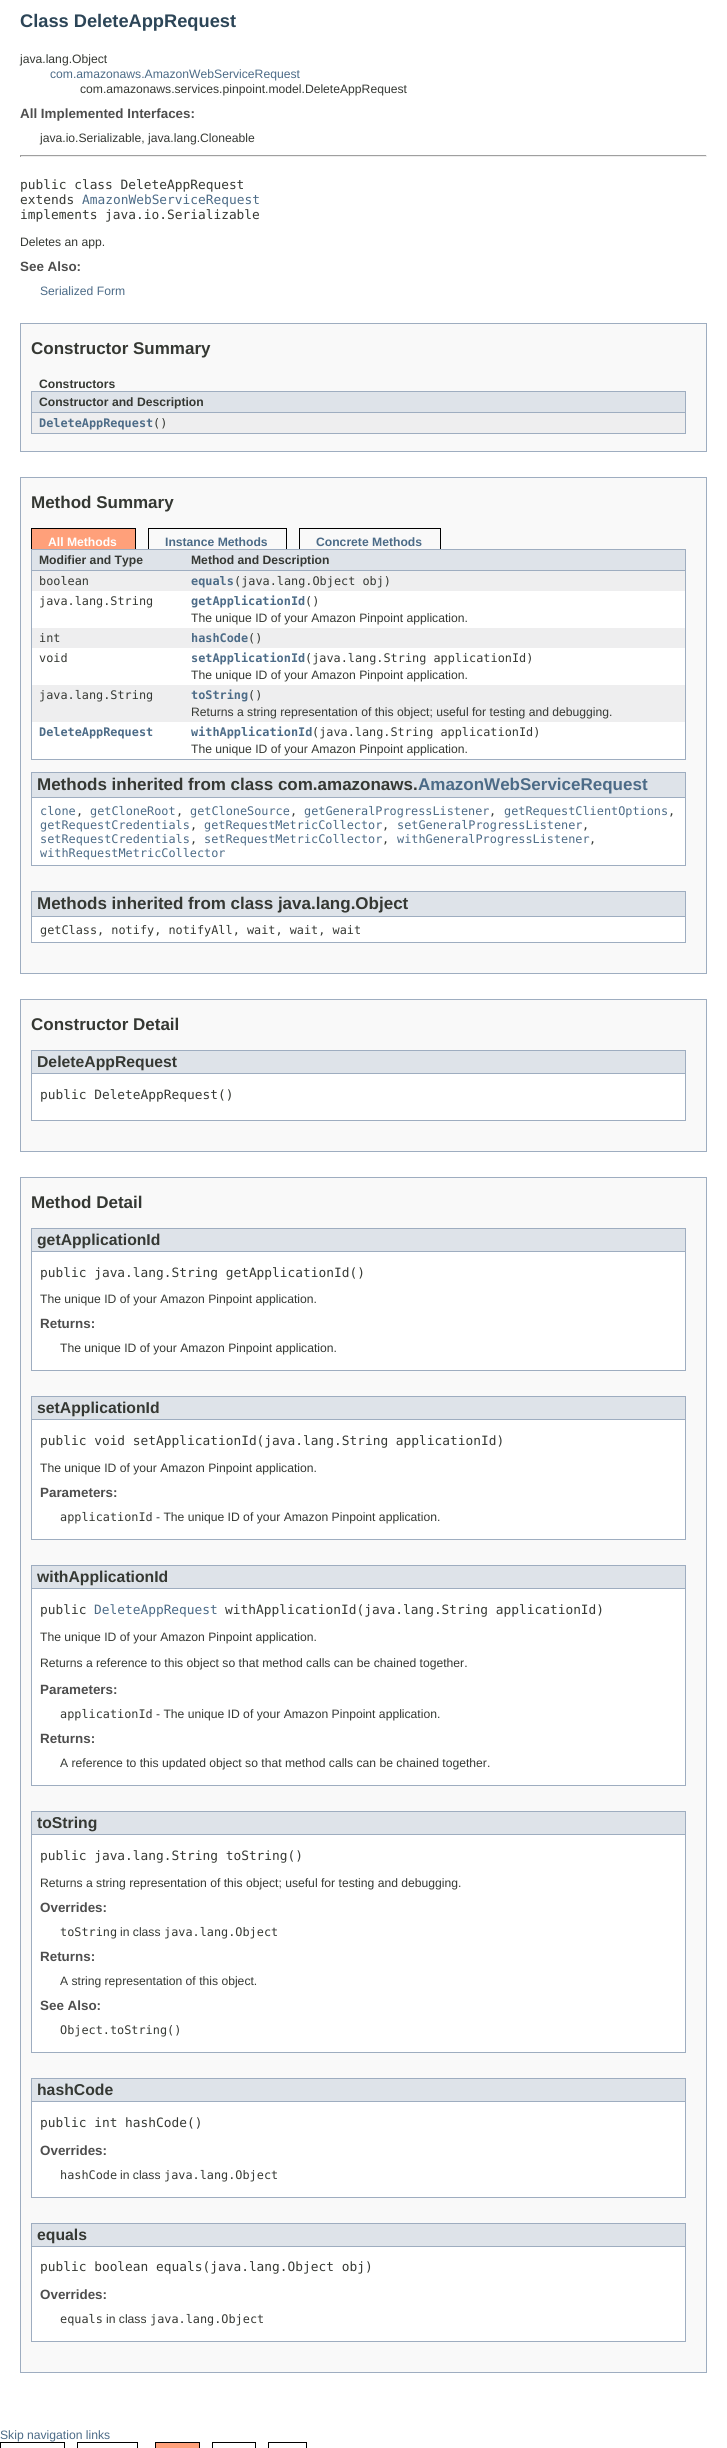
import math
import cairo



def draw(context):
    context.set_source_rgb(1, 1, 1)
    context.paint()
    context.set_source_rgb(159 / 255, 159 / 255, 159 / 255)
    context.rectangle(20, 155, 687, 1)
    context.fill()
    context.set_source_rgb(238 / 255, 238 / 255, 238 / 255)
    context.rectangle(706, 155, 1, 2)
    context.fill()
    context.rectangle(20, 156, 687, 1)
    context.fill()
    context.set_source_rgb(159 / 255, 159 / 255, 159 / 255)
    context.rectangle(20, 155, 1, 2)
    context.fill()
    context.set_source_rgb(249 / 255, 249 / 255, 249 / 255)
    context.rectangle(20.5, 323.5, 686, 128)
    context.fill_preserve()
    context.set_source_rgb(158 / 255, 173 / 255, 192 / 255)
    context.set_line_width(1)
    context.stroke()
    context.rectangle(31, 433, 655, 1)
    context.fill()
    context.set_source_rgb(222 / 255, 227 / 255, 233 / 255)
    context.rectangle(31.5, 391.5, 654, 21)
    context.fill_preserve()
    context.set_source_rgb(158 / 255, 173 / 255, 192 / 255)
    context.stroke()
    context.set_source_rgb(238 / 255, 238 / 255, 239 / 255)
    context.rectangle(32, 413, 653, 20)
    context.fill()
    context.set_source_rgb(158 / 255, 173 / 255, 192 / 255)
    context.rectangle(685, 413, 1, 20)
    context.fill()
    context.rectangle(31, 413, 1, 20)
    context.fill()
    context.set_source_rgb(249 / 255, 249 / 255, 249 / 255)
    context.rectangle(20.5, 477.5, 686, 496)
    context.fill_preserve()
    context.set_source_rgb(158 / 255, 173 / 255, 192 / 255)
    context.stroke()
    context.rectangle(31, 759, 655, 1)
    context.fill()
    context.set_source_rgb(1, 160 / 255, 122 / 255)
    context.rectangle(32, 529, 103, 20)
    context.fill()
    context.set_source_rgb(0, 0, 0)
    context.rectangle(31, 528, 105, 1)
    context.fill()
    context.rectangle(135, 528, 1, 21)
    context.fill()
    context.rectangle(31, 528, 1, 21)
    context.fill()
    context.rectangle(148, 528, 139, 1)
    context.fill()
    context.rectangle(286, 528, 1, 21)
    context.fill()
    context.rectangle(148, 528, 1, 21)
    context.fill()
    context.rectangle(299, 528, 142, 1)
    context.fill()
    context.rectangle(440, 528, 1, 21)
    context.fill()
    context.rectangle(299, 528, 1, 21)
    context.fill()
    context.set_source_rgb(222 / 255, 227 / 255, 233 / 255)
    context.rectangle(32, 550, 653, 20)
    context.fill()
    context.set_source_rgb(158 / 255, 173 / 255, 192 / 255)
    context.rectangle(31, 549, 655, 1)
    context.fill()
    context.rectangle(31, 570, 153, 1)
    context.fill()
    context.rectangle(31, 549, 1, 210)
    context.fill()
    context.rectangle(685, 549, 1, 210)
    context.fill()
    context.rectangle(184, 570, 502, 1)
    context.fill()
    context.set_source_rgb(238 / 255, 238 / 255, 239 / 255)
    context.rectangle(32, 571, 653, 20)
    context.fill()
    context.set_source_rgb(1, 1, 1)
    context.rectangle(32, 591, 653, 37)
    context.fill()
    context.set_source_rgb(238 / 255, 238 / 255, 239 / 255)
    context.rectangle(32, 628, 653, 20)
    context.fill()
    context.set_source_rgb(1, 1, 1)
    context.rectangle(32, 648, 653, 37)
    context.fill()
    context.set_source_rgb(238 / 255, 238 / 255, 239 / 255)
    context.rectangle(32, 685, 653, 37)
    context.fill()
    context.set_source_rgb(1, 1, 1)
    context.rectangle(32, 722, 653, 37)
    context.fill()
    context.rectangle(32, 798, 653, 67)
    context.fill()
    context.set_source_rgb(158 / 255, 173 / 255, 192 / 255)
    context.rectangle(685, 772, 1, 94)
    context.fill()
    context.rectangle(31, 865, 655, 1)
    context.fill()
    context.rectangle(31, 772, 1, 94)
    context.fill()
    context.set_source_rgb(222 / 255, 227 / 255, 233 / 255)
    context.rectangle(32, 773, 653, 24)
    context.fill()
    context.set_source_rgb(158 / 255, 173 / 255, 192 / 255)
    context.rectangle(32, 772, 653, 1)
    context.fill()
    context.rectangle(32, 797, 653, 1)
    context.fill()
    context.set_source_rgb(1, 1, 1)
    context.rectangle(32, 917, 653, 25)
    context.fill()
    context.set_source_rgb(158 / 255, 173 / 255, 192 / 255)
    context.rectangle(685, 891, 1, 52)
    context.fill()
    context.rectangle(31, 942, 655, 1)
    context.fill()
    context.rectangle(31, 891, 1, 52)
    context.fill()
    context.set_source_rgb(222 / 255, 227 / 255, 233 / 255)
    context.rectangle(32, 892, 653, 24)
    context.fill()
    context.set_source_rgb(158 / 255, 173 / 255, 192 / 255)
    context.rectangle(32, 891, 653, 1)
    context.fill()
    context.rectangle(32, 916, 653, 1)
    context.fill()
    context.set_source_rgb(249 / 255, 249 / 255, 249 / 255)
    context.rectangle(20.5, 999.5, 686, 152)
    context.fill_preserve()
    context.set_source_rgb(158 / 255, 173 / 255, 192 / 255)
    context.stroke()
    context.set_source_rgb(1, 1, 1)
    context.rectangle(32, 1074, 653, 46)
    context.fill()
    context.set_source_rgb(158 / 255, 173 / 255, 192 / 255)
    context.rectangle(685, 1050, 1, 71)
    context.fill()
    context.rectangle(31, 1120, 655, 1)
    context.fill()
    context.rectangle(31, 1050, 1, 71)
    context.fill()
    context.set_source_rgb(222 / 255, 227 / 255, 233 / 255)
    context.rectangle(32, 1051, 653, 22)
    context.fill()
    context.set_source_rgb(158 / 255, 173 / 255, 192 / 255)
    context.rectangle(32, 1050, 653, 1)
    context.fill()
    context.rectangle(32, 1073, 653, 1)
    context.fill()
    context.set_source_rgb(249 / 255, 249 / 255, 249 / 255)
    context.rectangle(20.5, 1177.5, 686, 1195)
    context.fill_preserve()
    context.set_source_rgb(158 / 255, 173 / 255, 192 / 255)
    context.stroke()
    context.set_source_rgb(1, 1, 1)
    context.rectangle(32, 1252, 653, 118)
    context.fill()
    context.set_source_rgb(158 / 255, 173 / 255, 192 / 255)
    context.rectangle(685, 1228, 1, 143)
    context.fill()
    context.rectangle(31, 1370, 655, 1)
    context.fill()
    context.rectangle(31, 1228, 1, 143)
    context.fill()
    context.set_source_rgb(222 / 255, 227 / 255, 233 / 255)
    context.rectangle(32, 1229, 653, 22)
    context.fill()
    context.set_source_rgb(158 / 255, 173 / 255, 192 / 255)
    context.rectangle(32, 1228, 653, 1)
    context.fill()
    context.rectangle(32, 1251, 653, 1)
    context.fill()
    context.set_source_rgb(1, 1, 1)
    context.rectangle(32, 1420, 653, 119)
    context.fill()
    context.set_source_rgb(158 / 255, 173 / 255, 192 / 255)
    context.rectangle(685, 1396, 1, 144)
    context.fill()
    context.rectangle(31, 1539, 655, 1)
    context.fill()
    context.rectangle(31, 1396, 1, 144)
    context.fill()
    context.set_source_rgb(222 / 255, 227 / 255, 233 / 255)
    context.rectangle(32, 1397, 653, 22)
    context.fill()
    context.set_source_rgb(158 / 255, 173 / 255, 192 / 255)
    context.rectangle(32, 1396, 653, 1)
    context.fill()
    context.rectangle(32, 1419, 653, 1)
    context.fill()
    context.set_source_rgb(1, 1, 1)
    context.rectangle(32, 1589, 653, 196)
    context.fill()
    context.set_source_rgb(158 / 255, 173 / 255, 192 / 255)
    context.rectangle(685, 1565, 1, 221)
    context.fill()
    context.rectangle(31, 1785, 655, 1)
    context.fill()
    context.rectangle(31, 1565, 1, 221)
    context.fill()
    context.set_source_rgb(222 / 255, 227 / 255, 233 / 255)
    context.rectangle(32, 1566, 653, 22)
    context.fill()
    context.set_source_rgb(158 / 255, 173 / 255, 192 / 255)
    context.rectangle(32, 1565, 653, 1)
    context.fill()
    context.rectangle(32, 1588, 653, 1)
    context.fill()
    context.set_source_rgb(1, 1, 1)
    context.rectangle(32, 1835, 653, 217)
    context.fill()
    context.set_source_rgb(158 / 255, 173 / 255, 192 / 255)
    context.rectangle(685, 1811, 1, 242)
    context.fill()
    context.rectangle(31, 2052, 655, 1)
    context.fill()
    context.rectangle(31, 1811, 1, 242)
    context.fill()
    context.set_source_rgb(222 / 255, 227 / 255, 233 / 255)
    context.rectangle(32, 1812, 653, 22)
    context.fill()
    context.set_source_rgb(158 / 255, 173 / 255, 192 / 255)
    context.rectangle(32, 1811, 653, 1)
    context.fill()
    context.rectangle(32, 1834, 653, 1)
    context.fill()
    context.set_source_rgb(1, 1, 1)
    context.rectangle(32, 2102, 653, 95)
    context.fill()
    context.set_source_rgb(158 / 255, 173 / 255, 192 / 255)
    context.rectangle(685, 2078, 1, 120)
    context.fill()
    context.rectangle(31, 2197, 655, 1)
    context.fill()
    context.rectangle(31, 2078, 1, 120)
    context.fill()
    context.set_source_rgb(222 / 255, 227 / 255, 233 / 255)
    context.rectangle(32, 2079, 653, 22)
    context.fill()
    context.set_source_rgb(158 / 255, 173 / 255, 192 / 255)
    context.rectangle(32, 2078, 653, 1)
    context.fill()
    context.rectangle(32, 2101, 653, 1)
    context.fill()
    context.set_source_rgb(1, 1, 1)
    context.rectangle(32, 2247, 653, 94)
    context.fill()
    context.set_source_rgb(158 / 255, 173 / 255, 192 / 255)
    context.rectangle(685, 2223, 1, 119)
    context.fill()
    context.rectangle(31, 2341, 655, 1)
    context.fill()
    context.rectangle(31, 2223, 1, 119)
    context.fill()
    context.set_source_rgb(222 / 255, 227 / 255, 233 / 255)
    context.rectangle(32, 2224, 653, 22)
    context.fill()
    context.set_source_rgb(158 / 255, 173 / 255, 192 / 255)
    context.rectangle(32, 2223, 653, 1)
    context.fill()
    context.rectangle(32, 2246, 653, 1)
    context.fill()
    context.set_source_rgb(0, 0, 0)
    context.rectangle(0, 2442, 65, 1)
    context.fill()
    context.rectangle(64, 2442, 1, 6)
    context.fill()
    context.rectangle(0, 2442, 1, 6)
    context.fill()
    context.rectangle(77, 2442, 61, 1)
    context.fill()
    context.rectangle(137, 2442, 1, 6)
    context.fill()
    context.rectangle(77, 2442, 1, 6)
    context.fill()
    context.set_source_rgb(1, 160 / 255, 122 / 255)
    context.rectangle(156, 2443, 43, 5)
    context.fill()
    context.set_source_rgb(0, 0, 0)
    context.rectangle(155, 2442, 45, 1)
    context.fill()
    context.rectangle(199, 2442, 1, 6)
    context.fill()
    context.rectangle(155, 2442, 1, 6)
    context.fill()
    context.rectangle(212, 2442, 44, 1)
    context.fill()
    context.rectangle(255, 2442, 1, 6)
    context.fill()
    context.rectangle(212, 2442, 1, 6)
    context.fill()
    context.rectangle(268, 2442, 39, 1)
    context.fill()
    context.rectangle(306, 2442, 1, 6)
    context.fill()
    context.rectangle(268, 2442, 1, 6)
    context.fill()
    context.select_font_face("Liberation Sans", cairo.FontSlant.NORMAL, cairo.FontWeight.BOLD)
    context.set_font_size(18.25)
    context.set_source_rgb(44 / 255, 69 / 255, 87 / 255)
    context.move_to(20, 27)
    context.show_text("Class DeleteAppRequest")
    context.select_font_face("Liberation Sans")
    context.set_font_size(12.15)
    context.set_source_rgb(53 / 255, 56 / 255, 51 / 255)
    context.move_to(20, 63)
    context.show_text("java.lang.Object")
    context.set_source_rgb(76 / 255, 107 / 255, 135 / 255)
    context.move_to(50, 78)
    context.show_text("com.amazonaws.AmazonWebServiceRequest")
    context.set_source_rgb(53 / 255, 56 / 255, 51 / 255)
    context.move_to(80, 93)
    context.show_text("com.amazonaws.services.pinpoint.model.DeleteAppRequest")
    context.select_font_face("Liberation Sans", cairo.FontSlant.NORMAL, cairo.FontWeight.BOLD)
    context.set_font_size(13.4)
    context.set_source_rgb(78 / 255, 78 / 255, 78 / 255)
    context.move_to(20, 118)
    context.show_text("All Implemented Interfaces:")
    context.select_font_face("Liberation Sans")
    context.set_font_size(12.15)
    context.set_source_rgb(53 / 255, 56 / 255, 51 / 255)
    context.move_to(40, 142)
    context.show_text("java.io.Serializable, java.lang.Cloneable")
    context.select_font_face("DejaVu Sans Mono")
    context.set_font_size(12.85)
    context.move_to(20, 189)
    context.show_text("public class DeleteAppRequest")
    context.move_to(20, 204)
    context.show_text("extends")
    context.set_source_rgb(76 / 255, 107 / 255, 135 / 255)
    context.move_to(82, 204)
    context.show_text("AmazonWebServiceRequest")
    context.set_source_rgb(53 / 255, 56 / 255, 51 / 255)
    context.move_to(20, 219)
    context.show_text("implements java.io.Serializable")
    context.select_font_face("Liberation Sans")
    context.set_font_size(12.15)
    context.move_to(20, 246)
    context.show_text("Deletes an app.")
    context.select_font_face("Liberation Sans", cairo.FontSlant.NORMAL, cairo.FontWeight.BOLD)
    context.set_font_size(13.4)
    context.set_source_rgb(78 / 255, 78 / 255, 78 / 255)
    context.move_to(20, 271)
    context.show_text("See Also:")
    context.select_font_face("Liberation Sans")
    context.set_font_size(12.15)
    context.set_source_rgb(76 / 255, 107 / 255, 135 / 255)
    context.move_to(40, 295)
    context.show_text("Serialized Form")
    context.select_font_face("Liberation Sans", cairo.FontSlant.NORMAL, cairo.FontWeight.BOLD)
    context.set_font_size(17)
    context.set_source_rgb(53 / 255, 56 / 255, 51 / 255)
    context.move_to(31, 354)
    context.show_text("Constructor Summary")
    context.set_font_size(12.15)
    context.move_to(39, 388)
    context.show_text("Constructors")
    context.move_to(39, 406)
    context.show_text("Constructor and Description")
    context.select_font_face("DejaVu Sans Mono", cairo.FontSlant.NORMAL, cairo.FontWeight.BOLD)
    context.set_font_size(11.85)
    context.set_source_rgb(76 / 255, 107 / 255, 135 / 255)
    context.move_to(39, 427)
    context.show_text("DeleteAppRequest")
    context.select_font_face("DejaVu Sans Mono")
    context.set_source_rgb(53 / 255, 56 / 255, 51 / 255)
    context.move_to(153, 427)
    context.show_text("()")
    context.select_font_face("Liberation Sans", cairo.FontSlant.NORMAL, cairo.FontWeight.BOLD)
    context.set_font_size(17)
    context.move_to(31, 508)
    context.show_text("Method Summary")
    context.set_font_size(12.15)
    context.set_source_rgb(1, 1, 1)
    context.move_to(48, 546)
    context.show_text("All Methods")
    context.set_source_rgb(76 / 255, 107 / 255, 135 / 255)
    context.move_to(165, 546)
    context.show_text("Instance Methods")
    context.move_to(316, 546)
    context.show_text("Concrete Methods")
    context.set_source_rgb(53 / 255, 56 / 255, 51 / 255)
    context.move_to(39, 564)
    context.show_text("Modifier and Type")
    context.move_to(191, 564)
    context.show_text("Method and Description")
    context.select_font_face("DejaVu Sans Mono")
    context.set_font_size(11.85)
    context.move_to(39, 585)
    context.show_text("boolean")
    context.select_font_face("DejaVu Sans Mono", cairo.FontSlant.NORMAL, cairo.FontWeight.BOLD)
    context.set_source_rgb(76 / 255, 107 / 255, 135 / 255)
    context.move_to(191, 585)
    context.show_text("equals")
    context.select_font_face("DejaVu Sans Mono")
    context.set_source_rgb(53 / 255, 56 / 255, 51 / 255)
    context.move_to(234, 585)
    context.show_text("(java.lang.Object obj)")
    context.move_to(39, 605)
    context.show_text("java.lang.String")
    context.select_font_face("DejaVu Sans Mono", cairo.FontSlant.NORMAL, cairo.FontWeight.BOLD)
    context.set_source_rgb(76 / 255, 107 / 255, 135 / 255)
    context.move_to(191, 605)
    context.show_text("getApplicationId")
    context.select_font_face("DejaVu Sans Mono")
    context.set_source_rgb(53 / 255, 56 / 255, 51 / 255)
    context.move_to(305, 605)
    context.show_text("()")
    context.select_font_face("Liberation Sans")
    context.set_font_size(12.15)
    context.move_to(191, 622)
    context.show_text("The unique ID of your Amazon Pinpoint application.")
    context.select_font_face("DejaVu Sans Mono")
    context.set_font_size(11.85)
    context.move_to(39, 642)
    context.show_text("int")
    context.select_font_face("DejaVu Sans Mono", cairo.FontSlant.NORMAL, cairo.FontWeight.BOLD)
    context.set_source_rgb(76 / 255, 107 / 255, 135 / 255)
    context.move_to(191, 642)
    context.show_text("hashCode")
    context.select_font_face("DejaVu Sans Mono")
    context.set_source_rgb(53 / 255, 56 / 255, 51 / 255)
    context.move_to(248, 642)
    context.show_text("()")
    context.move_to(39, 662)
    context.show_text("void")
    context.select_font_face("DejaVu Sans Mono", cairo.FontSlant.NORMAL, cairo.FontWeight.BOLD)
    context.set_source_rgb(76 / 255, 107 / 255, 135 / 255)
    context.move_to(191, 662)
    context.show_text("setApplicationId")
    context.select_font_face("DejaVu Sans Mono")
    context.set_source_rgb(53 / 255, 56 / 255, 51 / 255)
    context.move_to(305, 662)
    context.show_text("(java.lang.String applicationId)")
    context.select_font_face("Liberation Sans")
    context.set_font_size(12.15)
    context.move_to(191, 679)
    context.show_text("The unique ID of your Amazon Pinpoint application.")
    context.select_font_face("DejaVu Sans Mono")
    context.set_font_size(11.85)
    context.move_to(39, 699)
    context.show_text("java.lang.String")
    context.select_font_face("DejaVu Sans Mono", cairo.FontSlant.NORMAL, cairo.FontWeight.BOLD)
    context.set_source_rgb(76 / 255, 107 / 255, 135 / 255)
    context.move_to(191, 699)
    context.show_text("toString")
    context.select_font_face("DejaVu Sans Mono")
    context.set_source_rgb(53 / 255, 56 / 255, 51 / 255)
    context.move_to(248, 699)
    context.show_text("()")
    context.select_font_face("Liberation Sans")
    context.set_font_size(12.15)
    context.move_to(191, 716)
    context.show_text("Returns a string representation of this object; useful for testing and debugging.")
    context.select_font_face("DejaVu Sans Mono", cairo.FontSlant.NORMAL, cairo.FontWeight.BOLD)
    context.set_font_size(11.85)
    context.set_source_rgb(76 / 255, 107 / 255, 135 / 255)
    context.move_to(39, 736)
    context.show_text("DeleteAppRequest")
    context.move_to(191, 736)
    context.show_text("withApplicationId")
    context.select_font_face("DejaVu Sans Mono")
    context.set_source_rgb(53 / 255, 56 / 255, 51 / 255)
    context.move_to(312, 736)
    context.show_text("(java.lang.String applicationId)")
    context.select_font_face("Liberation Sans")
    context.set_font_size(12.15)
    context.move_to(191, 753)
    context.show_text("The unique ID of your Amazon Pinpoint application.")
    context.select_font_face("Liberation Sans", cairo.FontSlant.NORMAL, cairo.FontWeight.BOLD)
    context.set_font_size(17)
    context.move_to(37, 790)
    context.show_text("Methods inherited from class com.amazonaws.")
    context.set_source_rgb(76 / 255, 107 / 255, 135 / 255)
    context.move_to(418, 790)
    context.show_text("AmazonWebServiceRequest")
    context.select_font_face("DejaVu Sans Mono")
    context.set_font_size(11.85)
    context.move_to(40, 815)
    context.show_text("clone")
    context.set_source_rgb(53 / 255, 56 / 255, 51 / 255)
    context.move_to(76, 815)
    context.show_text(",")
    context.set_source_rgb(76 / 255, 107 / 255, 135 / 255)
    context.move_to(90, 815)
    context.show_text("getCloneRoot")
    context.set_source_rgb(53 / 255, 56 / 255, 51 / 255)
    context.move_to(176, 815)
    context.show_text(",")
    context.set_source_rgb(76 / 255, 107 / 255, 135 / 255)
    context.move_to(190, 815)
    context.show_text("getCloneSource")
    context.set_source_rgb(53 / 255, 56 / 255, 51 / 255)
    context.move_to(290, 815)
    context.show_text(",")
    context.set_source_rgb(76 / 255, 107 / 255, 135 / 255)
    context.move_to(304, 815)
    context.show_text("getGeneralProgressListener")
    context.set_source_rgb(53 / 255, 56 / 255, 51 / 255)
    context.move_to(489, 815)
    context.show_text(",")
    context.set_source_rgb(76 / 255, 107 / 255, 135 / 255)
    context.move_to(504, 815)
    context.show_text("getRequestClientOptions")
    context.set_source_rgb(53 / 255, 56 / 255, 51 / 255)
    context.move_to(668, 815)
    context.show_text(",")
    context.set_source_rgb(76 / 255, 107 / 255, 135 / 255)
    context.move_to(40, 829)
    context.show_text("getRequestCredentials")
    context.set_source_rgb(53 / 255, 56 / 255, 51 / 255)
    context.move_to(190, 829)
    context.show_text(",")
    context.set_source_rgb(76 / 255, 107 / 255, 135 / 255)
    context.move_to(204, 829)
    context.show_text("getRequestMetricCollector")
    context.set_source_rgb(53 / 255, 56 / 255, 51 / 255)
    context.move_to(382, 829)
    context.show_text(",")
    context.set_source_rgb(76 / 255, 107 / 255, 135 / 255)
    context.move_to(397, 829)
    context.show_text("setGeneralProgressListener")
    context.set_source_rgb(53 / 255, 56 / 255, 51 / 255)
    context.move_to(582, 829)
    context.show_text(",")
    context.set_source_rgb(76 / 255, 107 / 255, 135 / 255)
    context.move_to(40, 843)
    context.show_text("setRequestCredentials")
    context.set_source_rgb(53 / 255, 56 / 255, 51 / 255)
    context.move_to(190, 843)
    context.show_text(",")
    context.set_source_rgb(76 / 255, 107 / 255, 135 / 255)
    context.move_to(204, 843)
    context.show_text("setRequestMetricCollector")
    context.set_source_rgb(53 / 255, 56 / 255, 51 / 255)
    context.move_to(382, 843)
    context.show_text(",")
    context.set_source_rgb(76 / 255, 107 / 255, 135 / 255)
    context.move_to(397, 843)
    context.show_text("withGeneralProgressListener")
    context.set_source_rgb(53 / 255, 56 / 255, 51 / 255)
    context.move_to(589, 843)
    context.show_text(",")
    context.set_source_rgb(76 / 255, 107 / 255, 135 / 255)
    context.move_to(40, 857)
    context.show_text("withRequestMetricCollector")
    context.select_font_face("Liberation Sans", cairo.FontSlant.NORMAL, cairo.FontWeight.BOLD)
    context.set_font_size(17)
    context.set_source_rgb(53 / 255, 56 / 255, 51 / 255)
    context.move_to(37, 909)
    context.show_text("Methods inherited from class java.lang.Object")
    context.select_font_face("DejaVu Sans Mono")
    context.set_font_size(11.85)
    context.move_to(40, 934)
    context.show_text("getClass, notify, notifyAll, wait, wait, wait")
    context.select_font_face("Liberation Sans", cairo.FontSlant.NORMAL, cairo.FontWeight.BOLD)
    context.set_font_size(17)
    context.move_to(31, 1030)
    context.show_text("Constructor Detail")
    context.set_font_size(15.75)
    context.move_to(37, 1067)
    context.show_text("DeleteAppRequest")
    context.select_font_face("DejaVu Sans Mono")
    context.set_font_size(12.85)
    context.move_to(40, 1099)
    context.show_text("public DeleteAppRequest()")
    context.select_font_face("Liberation Sans", cairo.FontSlant.NORMAL, cairo.FontWeight.BOLD)
    context.set_font_size(17)
    context.move_to(31, 1208)
    context.show_text("Method Detail")
    context.set_font_size(15.75)
    context.move_to(37, 1245)
    context.show_text("getApplicationId")
    context.select_font_face("DejaVu Sans Mono")
    context.set_font_size(12.85)
    context.move_to(40, 1277)
    context.show_text("public java.lang.String getApplicationId()")
    context.select_font_face("Liberation Sans")
    context.set_font_size(12.15)
    context.move_to(40, 1303)
    context.show_text("The unique ID of your Amazon Pinpoint application.")
    context.select_font_face("Liberation Sans", cairo.FontSlant.NORMAL, cairo.FontWeight.BOLD)
    context.set_font_size(13.4)
    context.set_source_rgb(78 / 255, 78 / 255, 78 / 255)
    context.move_to(40, 1328)
    context.show_text("Returns:")
    context.select_font_face("Liberation Sans")
    context.set_font_size(12.15)
    context.set_source_rgb(53 / 255, 56 / 255, 51 / 255)
    context.move_to(60, 1352)
    context.show_text("The unique ID of your Amazon Pinpoint application.")
    context.select_font_face("Liberation Sans", cairo.FontSlant.NORMAL, cairo.FontWeight.BOLD)
    context.set_font_size(15.75)
    context.move_to(37, 1413)
    context.show_text("setApplicationId")
    context.select_font_face("DejaVu Sans Mono")
    context.set_font_size(12.85)
    context.move_to(40, 1445)
    context.show_text("public void setApplicationId(java.lang.String applicationId)")
    context.select_font_face("Liberation Sans")
    context.set_font_size(12.15)
    context.move_to(40, 1472)
    context.show_text("The unique ID of your Amazon Pinpoint application.")
    context.select_font_face("Liberation Sans", cairo.FontSlant.NORMAL, cairo.FontWeight.BOLD)
    context.set_font_size(13.4)
    context.set_source_rgb(78 / 255, 78 / 255, 78 / 255)
    context.move_to(40, 1497)
    context.show_text("Parameters:")
    context.select_font_face("DejaVu Sans Mono")
    context.set_font_size(11.85)
    context.set_source_rgb(53 / 255, 56 / 255, 51 / 255)
    context.move_to(60, 1521)
    context.show_text("applicationId")
    context.select_font_face("Liberation Sans")
    context.set_font_size(12.15)
    context.move_to(156, 1521)
    context.show_text("- The unique ID of your Amazon Pinpoint application.")
    context.select_font_face("Liberation Sans", cairo.FontSlant.NORMAL, cairo.FontWeight.BOLD)
    context.set_font_size(15.75)
    context.move_to(37, 1582)
    context.show_text("withApplicationId")
    context.select_font_face("DejaVu Sans Mono")
    context.set_font_size(12.85)
    context.move_to(40, 1614)
    context.show_text("public")
    context.set_source_rgb(76 / 255, 107 / 255, 135 / 255)
    context.move_to(94, 1614)
    context.show_text("DeleteAppRequest")
    context.set_source_rgb(53 / 255, 56 / 255, 51 / 255)
    context.move_to(225, 1614)
    context.show_text("withApplicationId(java.lang.String applicationId)")
    context.select_font_face("Liberation Sans")
    context.set_font_size(12.15)
    context.move_to(40, 1641)
    context.show_text("The unique ID of your Amazon Pinpoint application.")
    context.move_to(40, 1667)
    context.show_text("Returns a reference to this object so that method calls can be chained together.")
    context.select_font_face("Liberation Sans", cairo.FontSlant.NORMAL, cairo.FontWeight.BOLD)
    context.set_font_size(13.4)
    context.set_source_rgb(78 / 255, 78 / 255, 78 / 255)
    context.move_to(40, 1694)
    context.show_text("Parameters:")
    context.select_font_face("DejaVu Sans Mono")
    context.set_font_size(11.85)
    context.set_source_rgb(53 / 255, 56 / 255, 51 / 255)
    context.move_to(60, 1718)
    context.show_text("applicationId")
    context.select_font_face("Liberation Sans")
    context.set_font_size(12.15)
    context.move_to(156, 1718)
    context.show_text("- The unique ID of your Amazon Pinpoint application.")
    context.select_font_face("Liberation Sans", cairo.FontSlant.NORMAL, cairo.FontWeight.BOLD)
    context.set_font_size(13.4)
    context.set_source_rgb(78 / 255, 78 / 255, 78 / 255)
    context.move_to(40, 1743)
    context.show_text("Returns:")
    context.select_font_face("Liberation Sans")
    context.set_font_size(12.15)
    context.set_source_rgb(53 / 255, 56 / 255, 51 / 255)
    context.move_to(60, 1767)
    context.show_text("A reference to this updated object so that method calls can be chained together.")
    context.select_font_face("Liberation Sans", cairo.FontSlant.NORMAL, cairo.FontWeight.BOLD)
    context.set_font_size(15.75)
    context.move_to(37, 1828)
    context.show_text("toString")
    context.select_font_face("DejaVu Sans Mono")
    context.set_font_size(12.85)
    context.move_to(40, 1860)
    context.show_text("public java.lang.String toString()")
    context.select_font_face("Liberation Sans")
    context.set_font_size(12.15)
    context.move_to(40, 1887)
    context.show_text("Returns a string representation of this object; useful for testing and debugging.")
    context.select_font_face("Liberation Sans", cairo.FontSlant.NORMAL, cairo.FontWeight.BOLD)
    context.set_font_size(13.4)
    context.set_source_rgb(78 / 255, 78 / 255, 78 / 255)
    context.move_to(40, 1912)
    context.show_text("Overrides:")
    context.select_font_face("DejaVu Sans Mono")
    context.set_font_size(11.85)
    context.set_source_rgb(53 / 255, 56 / 255, 51 / 255)
    context.move_to(60, 1936)
    context.show_text("toString")
    context.select_font_face("Liberation Sans")
    context.set_font_size(12.15)
    context.move_to(120, 1936)
    context.show_text("in class")
    context.select_font_face("DejaVu Sans Mono")
    context.set_font_size(11.85)
    context.move_to(164, 1936)
    context.show_text("java.lang.Object")
    context.select_font_face("Liberation Sans", cairo.FontSlant.NORMAL, cairo.FontWeight.BOLD)
    context.set_font_size(13.4)
    context.set_source_rgb(78 / 255, 78 / 255, 78 / 255)
    context.move_to(40, 1961)
    context.show_text("Returns:")
    context.select_font_face("Liberation Sans")
    context.set_font_size(12.15)
    context.set_source_rgb(53 / 255, 56 / 255, 51 / 255)
    context.move_to(60, 1985)
    context.show_text("A string representation of this object.")
    context.select_font_face("Liberation Sans", cairo.FontSlant.NORMAL, cairo.FontWeight.BOLD)
    context.set_font_size(13.4)
    context.set_source_rgb(78 / 255, 78 / 255, 78 / 255)
    context.move_to(40, 2010)
    context.show_text("See Also:")
    context.select_font_face("DejaVu Sans Mono")
    context.set_font_size(11.85)
    context.set_source_rgb(53 / 255, 56 / 255, 51 / 255)
    context.move_to(60, 2034)
    context.show_text("Object.toString()")
    context.select_font_face("Liberation Sans", cairo.FontSlant.NORMAL, cairo.FontWeight.BOLD)
    context.set_font_size(15.75)
    context.move_to(37, 2095)
    context.show_text("hashCode")
    context.select_font_face("DejaVu Sans Mono")
    context.set_font_size(12.85)
    context.move_to(40, 2127)
    context.show_text("public int hashCode()")
    context.select_font_face("Liberation Sans", cairo.FontSlant.NORMAL, cairo.FontWeight.BOLD)
    context.set_font_size(13.4)
    context.set_source_rgb(78 / 255, 78 / 255, 78 / 255)
    context.move_to(40, 2155)
    context.show_text("Overrides:")
    context.select_font_face("DejaVu Sans Mono")
    context.set_font_size(11.85)
    context.set_source_rgb(53 / 255, 56 / 255, 51 / 255)
    context.move_to(60, 2179)
    context.show_text("hashCode")
    context.select_font_face("Liberation Sans")
    context.set_font_size(12.15)
    context.move_to(120, 2179)
    context.show_text("in class")
    context.select_font_face("DejaVu Sans Mono")
    context.set_font_size(11.85)
    context.move_to(164, 2179)
    context.show_text("java.lang.Object")
    context.select_font_face("Liberation Sans", cairo.FontSlant.NORMAL, cairo.FontWeight.BOLD)
    context.set_font_size(15.75)
    context.move_to(37, 2240)
    context.show_text("equals")
    context.select_font_face("DejaVu Sans Mono")
    context.set_font_size(12.85)
    context.move_to(40, 2271)
    context.show_text("public boolean equals(java.lang.Object obj)")
    context.select_font_face("Liberation Sans", cairo.FontSlant.NORMAL, cairo.FontWeight.BOLD)
    context.set_font_size(13.4)
    context.set_source_rgb(78 / 255, 78 / 255, 78 / 255)
    context.move_to(40, 2299)
    context.show_text("Overrides:")
    context.select_font_face("DejaVu Sans Mono")
    context.set_font_size(11.85)
    context.set_source_rgb(53 / 255, 56 / 255, 51 / 255)
    context.move_to(60, 2323)
    context.show_text("equals")
    context.select_font_face("Liberation Sans")
    context.set_font_size(12.15)
    context.move_to(106, 2323)
    context.show_text("in class")
    context.select_font_face("DejaVu Sans Mono")
    context.set_font_size(11.85)
    context.move_to(150, 2323)
    context.show_text("java.lang.Object")
    context.select_font_face("Liberation Sans")
    context.set_font_size(12.15)
    context.set_source_rgb(76 / 255, 107 / 255, 135 / 255)
    context.move_to(0, 2439)
    context.show_text("Skip navigation links")


surface = cairo.ImageSurface(cairo.Format.RGB24, 727, 2448)
context = cairo.Context(surface)
options = cairo.FontOptions()
options.set_hint_metrics(cairo.HintMetrics.OFF)
options.set_hint_style(cairo.HintStyle.NONE)
context.set_font_options(options)
context.set_miter_limit(4)
draw(context)
surface.write_to_png("out.png")
